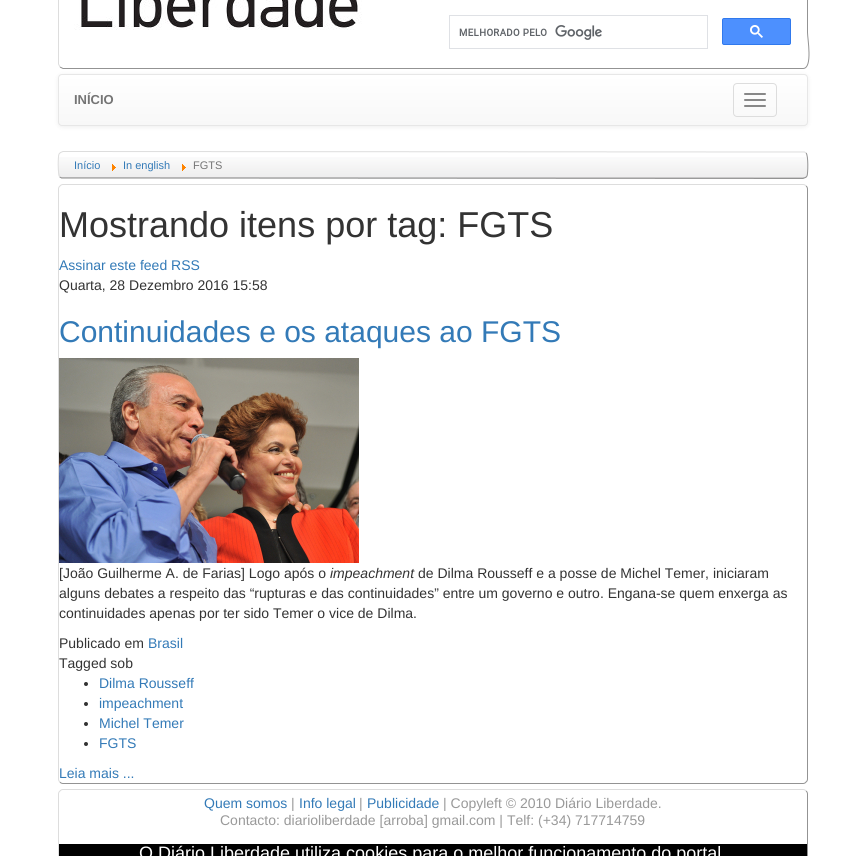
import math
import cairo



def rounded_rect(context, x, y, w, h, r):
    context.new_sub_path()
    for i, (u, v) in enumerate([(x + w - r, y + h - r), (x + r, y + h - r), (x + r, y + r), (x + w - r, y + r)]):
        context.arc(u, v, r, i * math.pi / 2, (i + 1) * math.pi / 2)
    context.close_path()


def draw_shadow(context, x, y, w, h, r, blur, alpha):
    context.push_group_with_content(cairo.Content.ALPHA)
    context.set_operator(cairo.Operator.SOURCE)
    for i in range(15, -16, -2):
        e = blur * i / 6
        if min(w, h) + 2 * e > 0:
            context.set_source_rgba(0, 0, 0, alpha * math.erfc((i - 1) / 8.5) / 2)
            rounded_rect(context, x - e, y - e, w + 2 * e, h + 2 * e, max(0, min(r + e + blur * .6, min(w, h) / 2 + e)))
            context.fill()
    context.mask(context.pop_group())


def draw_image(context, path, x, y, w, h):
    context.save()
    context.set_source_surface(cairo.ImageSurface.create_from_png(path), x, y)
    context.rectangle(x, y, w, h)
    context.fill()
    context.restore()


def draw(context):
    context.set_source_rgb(1, 1, 1)
    context.paint()
    context.new_path()
    context.move_to(806, -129)
    context.line_to(807.5, -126)
    context.line_to(807.5, 32.5)
    context.curve_to(807.5, 38.5, 813, 68.5, 803, 68.5)
    context.line_to(63, 68.5)
    context.line_to(60, 67)
    context.set_source_rgb(147 / 255, 147 / 255, 147 / 255)
    context.set_line_width(1)
    context.stroke()
    context.new_path()
    context.move_to(60, 67)
    context.line_to(58.5, 64)
    context.line_to(58.5, -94.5)
    context.curve_to(58.5, -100.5, 53, -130.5, 63, -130.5)
    context.line_to(803, -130.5)
    context.line_to(806, -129)
    context.set_source_rgb(221 / 255, 221 / 255, 221 / 255)
    context.stroke()
    draw_image(context, "images/1.png", 74, 0, 288, 30)
    context.rectangle(449.5, 15.5, 258, 33)
    context.set_source_rgb(223 / 255, 225 / 255, 229 / 255)
    context.stroke()
    draw_image(context, "images/2.png", 459, 25, 143, 15)
    context.set_source_rgb(77 / 255, 144 / 255, 254 / 255)
    rounded_rect(context, 722.5, 18.5, 68, 26, 1.5)
    context.fill_preserve()
    context.set_source_rgb(48 / 255, 121 / 255, 237 / 255)
    context.stroke()
    draw_image(context, "images/3.png", 750, 25, 13, 13)
    context.set_source_rgb(0, 0, 0)
    draw_shadow(context, 58, 75, 750, 52, 4, 2.5, 0.07)
    context.save()
    rounded_rect(context, 58, 74, 750, 52, 4)
    context.clip()
    gradient = cairo.LinearGradient(433, 75, 433, 125)
    gradient.add_color_stop_rgba(0, 1, 1, 1, 1)
    gradient.add_color_stop_rgba(1, 248 / 255, 248 / 255, 248 / 255, 1)
    context.set_source(gradient)
    context.rectangle(58, 75, 750, 50)
    context.fill()
    context.restore()
    rounded_rect(context, 58.5, 74.5, 749, 51, 3.5)
    context.set_source_rgb(231 / 255, 231 / 255, 231 / 255)
    context.stroke()
    rounded_rect(context, 733.5, 83.5, 43, 33, 3.5)
    context.set_source_rgb(221 / 255, 221 / 255, 221 / 255)
    context.stroke()
    context.set_source_rgb(136 / 255, 136 / 255, 136 / 255)
    rounded_rect(context, 744, 93, 22, 2, 1)
    context.fill()
    rounded_rect(context, 744, 99, 22, 2, 1)
    context.fill()
    rounded_rect(context, 744, 105, 22, 2, 1)
    context.fill()
    draw_image(context, "images/4.png", 58, 157, 750, 21)
    context.new_path()
    context.move_to(806, 153)
    context.curve_to(808.5, 155, 808, 174, 807, 176)
    context.line_to(805.5, 177.5)
    context.line_to(803, 178.5)
    context.line_to(61.5, 178)
    context.line_to(60, 177)
    context.set_source_rgb(147 / 255, 147 / 255, 147 / 255)
    context.stroke()
    context.new_path()
    context.move_to(60, 177)
    context.curve_to(57.5, 175, 58, 156, 59, 154)
    context.line_to(60.5, 152.5)
    context.line_to(63, 151.5)
    context.line_to(804.5, 152)
    context.line_to(806, 153)
    context.set_source_rgb(221 / 255, 221 / 255, 221 / 255)
    context.stroke()
    draw_image(context, "images/5.png", 112, 164, 4, 7)
    draw_image(context, "images/5.png", 182, 164, 4, 7)
    context.new_path()
    context.move_to(806, 186)
    context.curve_to(807, 186.5, 807.5, 188, 807.5, 189)
    context.line_to(807.5, 779)
    context.curve_to(807.5, 780, 807, 781.5, 806, 782)
    context.curve_to(805.5, 783, 804, 783.5, 803, 783.5)
    context.line_to(63, 783.5)
    context.curve_to(62, 783.5, 60.5, 783, 60, 782)
    context.set_source_rgb(147 / 255, 147 / 255, 147 / 255)
    context.stroke()
    context.new_path()
    context.move_to(60, 782)
    context.curve_to(59, 781.5, 58.5, 780, 58.5, 779)
    context.line_to(58.5, 189)
    context.curve_to(58.5, 188, 59, 186.5, 60, 186)
    context.curve_to(60.5, 185, 62, 184.5, 63, 184.5)
    context.line_to(803, 184.5)
    context.curve_to(804, 184.5, 805.5, 185, 806, 186)
    context.set_source_rgb(221 / 255, 221 / 255, 221 / 255)
    context.stroke()
    draw_image(context, "images/6.png", 59, 358, 300, 205)
    context.set_source_rgb(51 / 255, 51 / 255, 51 / 255)
    context.arc(86, 684, 2, 0, 2 * math.pi)
    context.fill()
    context.arc(86, 704, 2, 0, 2 * math.pi)
    context.fill()
    context.arc(86, 724, 2, 0, 2 * math.pi)
    context.fill()
    context.arc(86, 744, 2, 0, 2 * math.pi)
    context.fill()
    context.new_path()
    context.move_to(806, 791)
    context.curve_to(807, 791.5, 807.5, 793, 807.5, 794)
    context.line_to(807.5, 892)
    context.curve_to(807.5, 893, 807, 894.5, 806, 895)
    context.curve_to(805.5, 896, 804, 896.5, 803, 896.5)
    context.line_to(63, 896.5)
    context.curve_to(62, 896.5, 60.5, 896, 60, 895)
    context.set_source_rgb(147 / 255, 147 / 255, 147 / 255)
    context.stroke()
    context.new_path()
    context.move_to(60, 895)
    context.curve_to(59, 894.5, 58.5, 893, 58.5, 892)
    context.line_to(58.5, 794)
    context.curve_to(58.5, 793, 59, 791.5, 60, 791)
    context.curve_to(60.5, 790, 62, 789.5, 63, 789.5)
    context.line_to(803, 789.5)
    context.curve_to(804, 789.5, 805.5, 790, 806, 791)
    context.set_source_rgb(221 / 255, 221 / 255, 221 / 255)
    context.stroke()
    context.set_source_rgb(0, 0, 0)
    context.rectangle(59, 844, 748, 12)
    context.fill()
    context.select_font_face("Liberation Sans", cairo.FontSlant.NORMAL, cairo.FontWeight.BOLD)
    context.set_font_size(13)
    context.set_source_rgb(117 / 255, 117 / 255, 117 / 255)
    context.move_to(74, 104)
    context.show_text("INÍCIO")
    context.select_font_face("Liberation Sans")
    context.set_font_size(11)
    context.set_source_rgb(51 / 255, 122 / 255, 183 / 255)
    context.move_to(74, 169)
    context.show_text("Início")
    context.move_to(123, 169)
    context.show_text("In english")
    context.set_source_rgb(117 / 255, 117 / 255, 117 / 255)
    context.move_to(193, 169)
    context.show_text("FGTS")
    context.set_font_size(36)
    context.set_source_rgb(51 / 255, 51 / 255, 51 / 255)
    context.move_to(59, 237)
    context.show_text("Mostrando itens por tag: FGTS")
    context.set_font_size(14)
    context.set_source_rgb(51 / 255, 122 / 255, 183 / 255)
    context.move_to(59, 270)
    context.show_text("Assinar este feed RSS")
    context.set_source_rgb(51 / 255, 51 / 255, 51 / 255)
    context.move_to(59, 290)
    context.show_text("Quarta, 28 Dezembro 2016 15:58")
    context.set_font_size(30)
    context.set_source_rgb(51 / 255, 122 / 255, 183 / 255)
    context.move_to(59, 342)
    context.show_text("Continuidades e os ataques ao FGTS")
    context.set_font_size(14)
    context.set_source_rgb(51 / 255, 51 / 255, 51 / 255)
    context.move_to(59, 578)
    context.show_text("[João Guilherme A. de Farias] Logo após o")
    context.select_font_face("Liberation Sans", cairo.FontSlant.ITALIC)
    context.move_to(330, 578)
    context.show_text("impeachment")
    context.select_font_face("Liberation Sans")
    context.move_to(418, 578)
    context.show_text("de Dilma Rousseff e a posse de Michel Temer, iniciaram")
    context.move_to(59, 598)
    context.show_text("alguns debates a respeito das “rupturas e das continuidades” entre um governo e outro. Engana-se quem enxerga as")
    context.move_to(59, 618)
    context.show_text("continuidades apenas por ter sido Temer o vice de Dilma.")
    context.move_to(59, 648)
    context.show_text("Publicado em")
    context.set_source_rgb(51 / 255, 122 / 255, 183 / 255)
    context.move_to(148, 648)
    context.show_text("Brasil")
    context.set_source_rgb(51 / 255, 51 / 255, 51 / 255)
    context.move_to(59, 668)
    context.show_text("Tagged sob")
    context.set_source_rgb(51 / 255, 122 / 255, 183 / 255)
    context.move_to(99, 688)
    context.show_text("Dilma Rousseff")
    context.move_to(99, 708)
    context.show_text("impeachment")
    context.move_to(99, 728)
    context.show_text("Michel Temer")
    context.move_to(99, 748)
    context.show_text("FGTS")
    context.move_to(59, 778)
    context.show_text("Leia mais ...")
    context.move_to(204, 808)
    context.show_text("Quem somos")
    context.set_source_rgb(153 / 255, 153 / 255, 153 / 255)
    context.move_to(291, 808)
    context.show_text("|")
    context.set_source_rgb(51 / 255, 122 / 255, 183 / 255)
    context.move_to(299, 808)
    context.show_text("Info legal")
    context.set_source_rgb(153 / 255, 153 / 255, 153 / 255)
    context.move_to(359, 808)
    context.show_text("|")
    context.set_source_rgb(51 / 255, 122 / 255, 183 / 255)
    context.move_to(367, 808)
    context.show_text("Publicidade")
    context.set_source_rgb(153 / 255, 153 / 255, 153 / 255)
    context.move_to(443, 808)
    context.show_text("| Copyleft © 2010 Diário Liberdade.")
    context.move_to(220, 825)
    context.show_text("Contacto: diarioliberdade [arroba] gmail.com | Telf: (+34) 717714759")
    context.set_font_size(18)
    context.set_source_rgb(1, 1, 1)
    context.move_to(139, 859)
    context.show_text("O Diário Liberdade utiliza cookies para o melhor funcionamento do portal")


surface = cairo.ImageSurface(cairo.Format.RGB24, 866, 856)
context = cairo.Context(surface)
options = cairo.FontOptions()
options.set_hint_metrics(cairo.HintMetrics.OFF)
options.set_hint_style(cairo.HintStyle.NONE)
context.set_font_options(options)
context.set_miter_limit(4)
draw(context)
surface.write_to_png("out.png")
